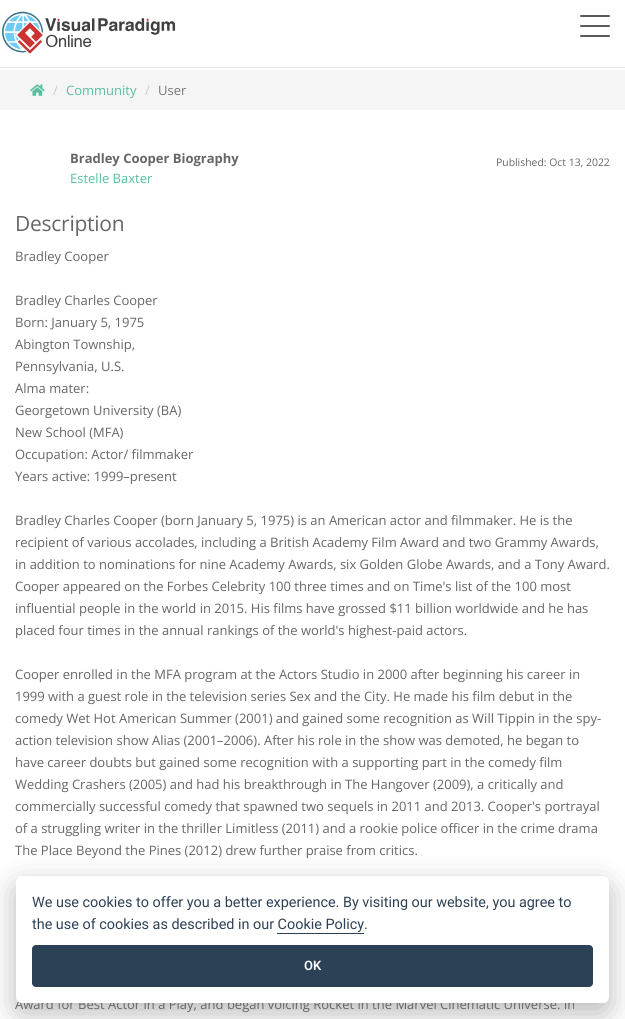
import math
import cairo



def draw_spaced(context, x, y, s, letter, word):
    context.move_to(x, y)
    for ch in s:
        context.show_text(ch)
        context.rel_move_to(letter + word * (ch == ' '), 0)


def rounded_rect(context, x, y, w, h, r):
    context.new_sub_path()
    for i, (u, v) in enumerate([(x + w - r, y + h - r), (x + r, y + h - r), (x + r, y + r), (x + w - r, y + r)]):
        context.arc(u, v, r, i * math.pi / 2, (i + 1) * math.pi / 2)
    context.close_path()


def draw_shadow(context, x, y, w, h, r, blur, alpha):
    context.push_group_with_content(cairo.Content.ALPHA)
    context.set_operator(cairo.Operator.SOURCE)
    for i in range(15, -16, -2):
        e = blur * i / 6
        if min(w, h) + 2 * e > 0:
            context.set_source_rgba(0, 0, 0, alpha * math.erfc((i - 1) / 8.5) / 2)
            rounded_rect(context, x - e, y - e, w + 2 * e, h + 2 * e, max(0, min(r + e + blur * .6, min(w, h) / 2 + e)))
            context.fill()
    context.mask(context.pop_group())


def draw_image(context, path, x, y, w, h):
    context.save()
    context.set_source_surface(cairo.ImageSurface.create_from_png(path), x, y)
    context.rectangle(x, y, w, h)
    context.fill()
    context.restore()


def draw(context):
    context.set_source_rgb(1, 1, 1)
    context.paint()
    context.set_source_rgb(231 / 255, 231 / 255, 231 / 255)
    context.rectangle(0, 67, 625, 1)
    context.fill()
    draw_image(context, "images/1.png", 2, 11, 174, 43)
    context.set_source_rgb(90 / 255, 90 / 255, 90 / 255)
    rounded_rect(context, 580, 15, 30, 2, 1)
    context.fill()
    rounded_rect(context, 580, 25, 30, 2, 1)
    context.fill()
    rounded_rect(context, 580, 35, 30, 2, 1)
    context.fill()
    context.set_source_rgb(245 / 255, 245 / 255, 245 / 255)
    context.rectangle(0, 70, 625, 40)
    context.fill()
    draw_image(context, "images/2.png", 30, 84, 15, 12)
    context.set_source_rgb(2 / 255, 2 / 255, 3 / 255)
    draw_shadow(context, 16, 886, 593, 127, 6, 15, 0.28)
    context.select_font_face("Open Sans")
    context.set_font_size(13)
    context.set_source_rgb(204 / 255, 204 / 255, 204 / 255)
    context.move_to(53, 95)
    context.show_text("/")
    context.set_source_rgb(87 / 255, 190 / 255, 162 / 255)
    context.move_to(66, 95)
    context.show_text("Community")
    context.set_source_rgb(204 / 255, 204 / 255, 204 / 255)
    context.move_to(145, 95)
    context.show_text("/")
    context.set_source_rgb(119 / 255, 119 / 255, 119 / 255)
    context.move_to(158, 95)
    context.show_text("User")
    context.select_font_face("Open Sans", cairo.FontSlant.NORMAL, cairo.FontWeight.BOLD)
    context.set_source_rgb(102 / 255, 102 / 255, 102 / 255)
    context.move_to(70, 163)
    context.show_text("Bradley Cooper Biography")
    context.select_font_face("Open Sans")
    context.set_source_rgb(87 / 255, 190 / 255, 162 / 255)
    context.move_to(70, 183)
    context.show_text("Estelle Baxter")
    context.set_font_size(10.4)
    context.set_source_rgb(102 / 255, 102 / 255, 102 / 255)
    context.move_to(496, 166)
    context.show_text("Published: Oct 13, 2022")
    context.set_font_size(21)
    draw_spaced(context, 15, 231, "Description", -0.25, 0)
    context.set_font_size(13)
    context.move_to(15, 261)
    context.show_text("Bradley Cooper")
    context.move_to(15, 305)
    context.show_text("Bradley Charles Cooper")
    context.move_to(15, 327)
    context.show_text("Born: January 5, 1975")
    context.move_to(15, 349)
    context.show_text("Abington Township,")
    context.move_to(15, 371)
    context.show_text("Pennsylvania, U.S.")
    context.move_to(15, 393)
    context.show_text("Alma mater:")
    context.move_to(15, 415)
    context.show_text("Georgetown University (BA)")
    context.move_to(15, 437)
    context.show_text("New School (MFA)")
    context.move_to(15, 459)
    context.show_text("Occupation: Actor/ filmmaker")
    context.move_to(15, 481)
    context.show_text("Years active: 1999–present")
    context.move_to(15, 525)
    context.show_text("Bradley Charles Cooper (born January 5, 1975) is an American actor and filmmaker. He is the")
    context.move_to(15, 547)
    context.show_text("recipient of various accolades, including a British Academy Film Award and two Grammy Awards,")
    context.move_to(15, 569)
    context.show_text("in addition to nominations for nine Academy Awards, six Golden Globe Awards, and a Tony Award.")
    context.move_to(15, 591)
    context.show_text("Cooper appeared on the Forbes Celebrity 100 three times and on Time's list of the 100 most")
    context.move_to(15, 613)
    context.show_text("influential people in the world in 2015. His films have grossed $11 billion worldwide and he has")
    context.move_to(15, 635)
    context.show_text("placed four times in the annual rankings of the world's highest-paid actors.")
    context.move_to(15, 679)
    context.show_text("Cooper enrolled in the MFA program at the Actors Studio in 2000 after beginning his career in")
    context.move_to(15, 701)
    context.show_text("1999 with a guest role in the television series Sex and the City. He made his film debut in the")
    context.move_to(15, 723)
    context.show_text("comedy Wet Hot American Summer (2001) and gained some recognition as Will Tippin in the spy-")
    context.move_to(15, 745)
    context.show_text("action television show Alias (2001–2006). After his role in the show was demoted, he began to")
    context.move_to(15, 767)
    context.show_text("have career doubts but gained some recognition with a supporting part in the comedy film")
    context.move_to(15, 789)
    context.show_text("Wedding Crashers (2005) and had his breakthrough in The Hangover (2009), a critically and")
    context.move_to(15, 811)
    context.show_text("commercially successful comedy that spawned two sequels in 2011 and 2013. Cooper's portrayal")
    context.move_to(15, 833)
    context.show_text("of a struggling writer in the thriller Limitless (2011) and a rookie police officer in the crime drama")
    context.move_to(15, 855)
    context.show_text("The Place Beyond the Pines (2012) drew further praise from critics.")
    context.move_to(15, 1009)
    context.show_text("Award for Best Actor in a Play, and began voicing Rocket in the Marvel Cinematic Universe. In")
    context.set_source_rgb(1, 1, 1)
    rounded_rect(context, 16, 876, 593, 127, 6)
    context.fill()
    context.select_font_face("Roboto")
    context.set_font_size(14.4)
    context.set_source_rgb(45 / 255, 65 / 255, 86 / 255)
    context.move_to(32, 907)
    context.show_text("We use cookies to offer you a better experience. By visiting our website, you agree to")
    context.move_to(32, 929)
    context.show_text("the use of cookies as described in our Cookie Policy.")
    context.rectangle(277, 933, 87, 1)
    context.fill()
    rounded_rect(context, 32, 945, 561, 42, 4)
    context.fill()
    context.select_font_face("Roboto SemiBold")
    context.set_font_size(13)
    context.set_source_rgb(1, 1, 1)
    context.move_to(304, 970)
    context.show_text("OK")


surface = cairo.ImageSurface(cairo.Format.RGB24, 625, 1019)
context = cairo.Context(surface)
options = cairo.FontOptions()
options.set_hint_metrics(cairo.HintMetrics.OFF)
options.set_hint_style(cairo.HintStyle.NONE)
context.set_font_options(options)
context.set_miter_limit(4)
draw(context)
surface.write_to_png("out.png")
